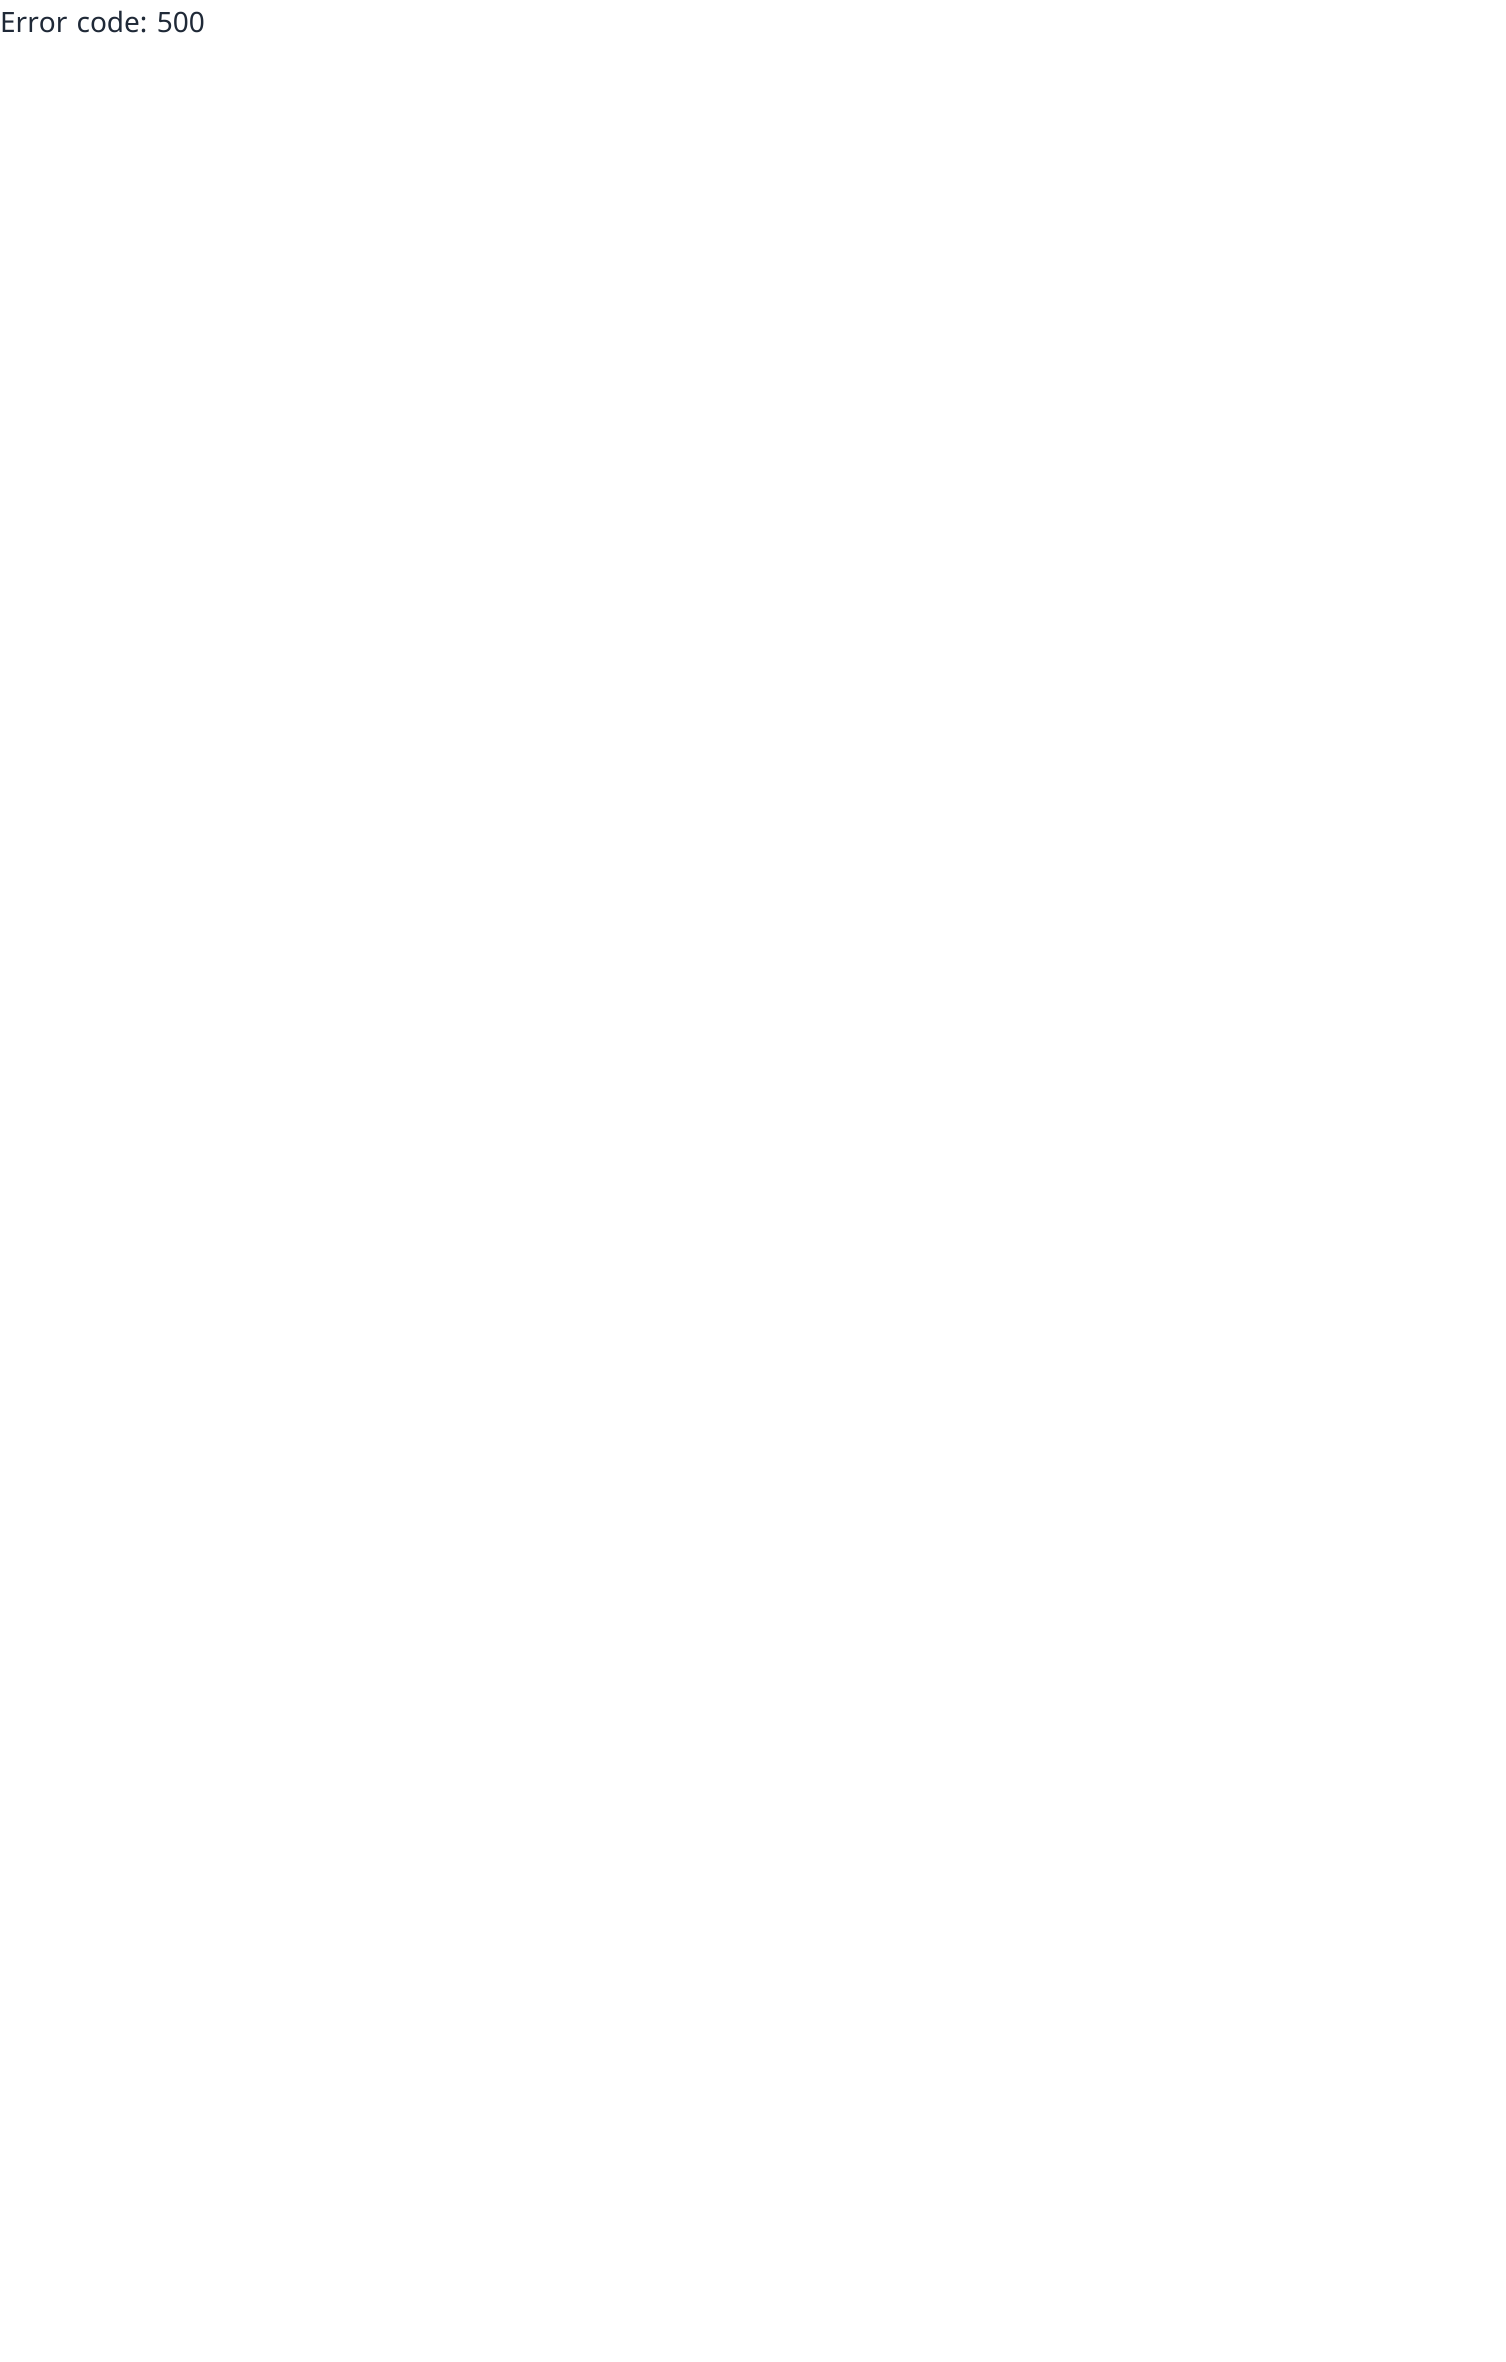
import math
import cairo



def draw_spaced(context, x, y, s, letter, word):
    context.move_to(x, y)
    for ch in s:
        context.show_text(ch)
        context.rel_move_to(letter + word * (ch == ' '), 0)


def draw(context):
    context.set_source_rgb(1, 1, 1)
    context.paint()
    context.select_font_face("Noto Sans")
    context.set_font_size(28)
    context.set_source_rgb(31 / 255, 41 / 255, 55 / 255)
    draw_spaced(context, 0, 32, "Error code: 500", 0, 2)


surface = cairo.ImageSurface(cairo.Format.RGB24, 1506, 2362)
context = cairo.Context(surface)
options = cairo.FontOptions()
options.set_hint_metrics(cairo.HintMetrics.OFF)
options.set_hint_style(cairo.HintStyle.NONE)
context.set_font_options(options)
context.set_miter_limit(4)
draw(context)
surface.write_to_png("out.png")
